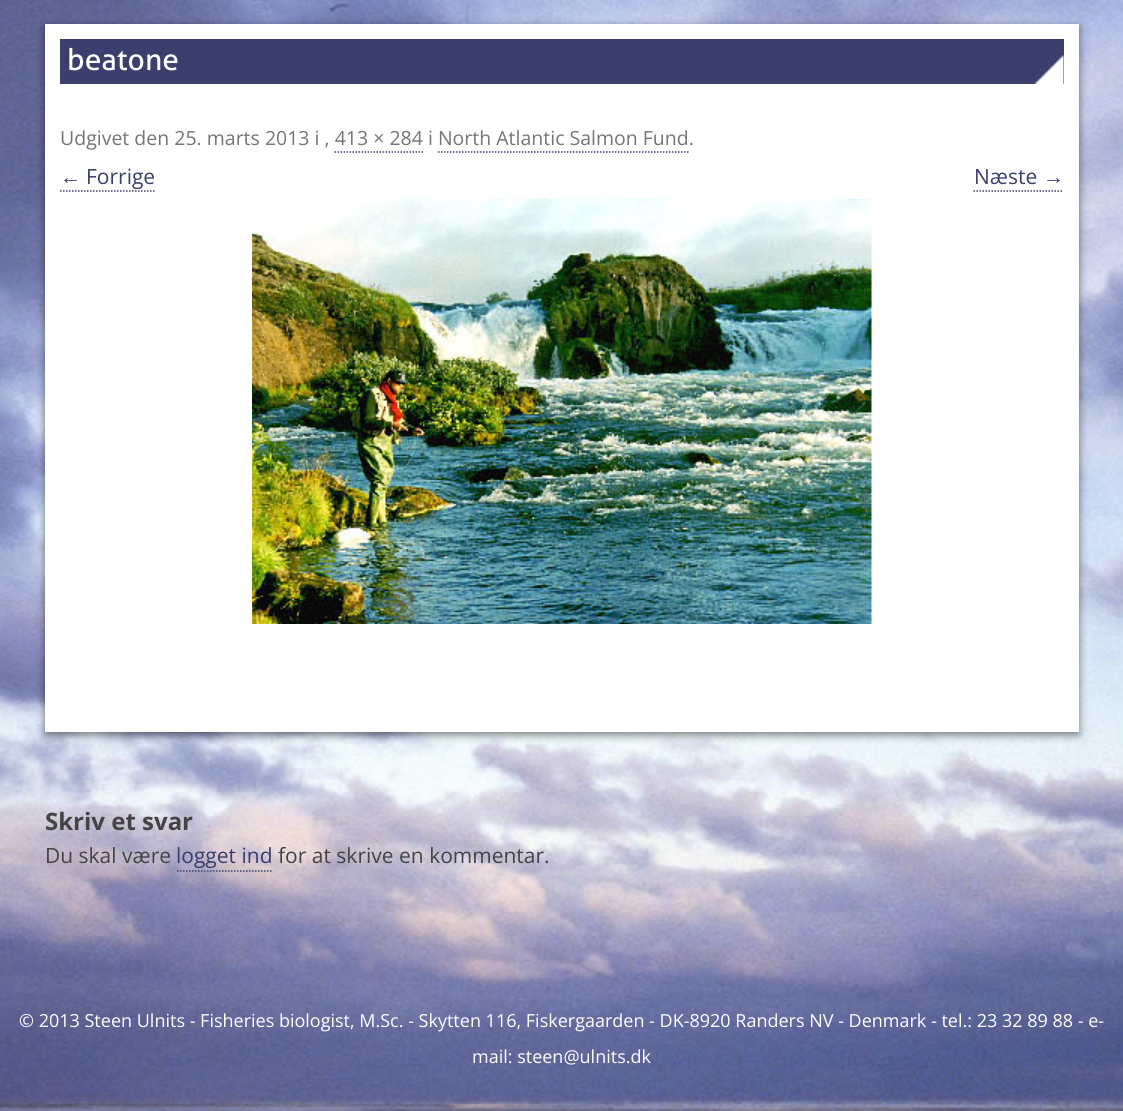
import math
import cairo



def rounded_rect(context, x, y, w, h, r):
    context.new_sub_path()
    for i, (u, v) in enumerate([(x + w - r, y + h - r), (x + r, y + h - r), (x + r, y + r), (x + w - r, y + r)]):
        context.arc(u, v, r, i * math.pi / 2, (i + 1) * math.pi / 2)
    context.close_path()


def draw_shadow(context, x, y, w, h, r, blur, alpha):
    context.push_group_with_content(cairo.Content.ALPHA)
    context.set_operator(cairo.Operator.SOURCE)
    for i in range(15, -16, -2):
        e = blur * i / 6
        if min(w, h) + 2 * e > 0:
            context.set_source_rgba(0, 0, 0, alpha * math.erfc((i - 1) / 8.5) / 2)
            rounded_rect(context, x - e, y - e, w + 2 * e, h + 2 * e, max(0, min(r + e + blur * .6, min(w, h) / 2 + e)))
            context.fill()
    context.mask(context.pop_group())


def draw_image(context, path, x, y, w, h):
    context.save()
    context.set_source_surface(cairo.ImageSurface.create_from_png(path), x, y)
    context.rectangle(x, y, w, h)
    context.fill()
    context.restore()


def draw(context):
    context.set_source_rgb(1, 1, 1)
    context.paint()
    draw_image(context, "images/1.png", 0, 0, 1123, 1111)
    context.set_source_rgb(0, 0, 0)
    draw_shadow(context, 45, 27, 1034, 708, 0, 4.5, 0.5)
    context.set_source_rgb(1, 1, 1)
    context.rectangle(45, 24, 1034, 708)
    context.fill()
    context.set_source_rgb(58 / 255, 63 / 255, 110 / 255)
    context.rectangle(60, 39, 1004, 45)
    context.fill()
    draw_image(context, "images/2.png", 1034, 55, 30, 29)
    context.new_path()
    context.move_to(334.5, 152)
    context.line_to(423, 152)
    context.set_source_rgb(57 / 255, 63 / 255, 109 / 255)
    context.set_line_width(1.5)
    context.set_dash([1.5, 1.5])
    context.stroke()
    context.new_path()
    context.move_to(438, 152)
    context.line_to(688.5, 152)
    context.stroke()
    context.new_path()
    context.move_to(60, 191)
    context.line_to(156, 191)
    context.stroke()
    context.new_path()
    context.move_to(973.5, 191)
    context.line_to(1063.5, 191)
    context.stroke()
    draw_image(context, "images/3.png", 252, 198, 620, 426)
    context.new_path()
    context.move_to(177, 871)
    context.line_to(273, 871)
    context.stroke()
    context.select_font_face("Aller")
    context.set_font_size(30)
    context.set_source_rgb(1, 1, 1)
    context.move_to(67, 70)
    context.show_text("beatone")
    context.select_font_face("Open Sans")
    context.set_font_size(19.5)
    context.set_source_rgb(117 / 255, 117 / 255, 117 / 255)
    context.move_to(60, 145)
    context.show_text("Udgivet den 25. marts 2013 i , 413 × 284 i North Atlantic Salmon Fund.")
    context.select_font_face("Liberation Sans")
    context.set_font_size(21)
    context.set_source_rgb(57 / 255, 63 / 255, 109 / 255)
    context.move_to(60, 184)
    context.show_text("←")
    context.select_font_face("Open Sans")
    context.move_to(86, 184)
    context.show_text("Forrige")
    context.move_to(974, 184)
    context.show_text("Næste")
    context.select_font_face("Liberation Sans")
    context.move_to(1043, 184)
    context.show_text("→")
    context.select_font_face("Open Sans", cairo.FontSlant.NORMAL, cairo.FontWeight.BOLD)
    context.set_font_size(24)
    context.set_source_rgb(68 / 255, 68 / 255, 68 / 255)
    context.move_to(45, 830)
    context.show_text("Skriv et svar")
    context.select_font_face("Open Sans")
    context.set_font_size(21)
    context.move_to(45, 863)
    context.show_text("Du skal være")
    context.set_source_rgb(57 / 255, 63 / 255, 109 / 255)
    context.move_to(176, 863)
    context.show_text("logget ind")
    context.set_source_rgb(68 / 255, 68 / 255, 68 / 255)
    context.move_to(278, 863)
    context.show_text("for at skrive en kommentar.")
    context.set_font_size(18)
    context.set_source_rgb(1, 1, 1)
    context.move_to(19, 1027)
    context.show_text("© 2013 Steen Ulnits - Fisheries biologist, M.Sc. - Skytten 116, Fiskergaarden - DK-8920 Randers NV - Denmark - tel.: 23 32 89 88 - e-")
    context.move_to(472, 1063)
    context.show_text("mail: steen@ulnits.dk")


surface = cairo.ImageSurface(cairo.Format.RGB24, 1123, 1111)
context = cairo.Context(surface)
options = cairo.FontOptions()
options.set_hint_metrics(cairo.HintMetrics.OFF)
options.set_hint_style(cairo.HintStyle.NONE)
context.set_font_options(options)
context.set_miter_limit(4)
draw(context)
surface.write_to_png("out.png")
